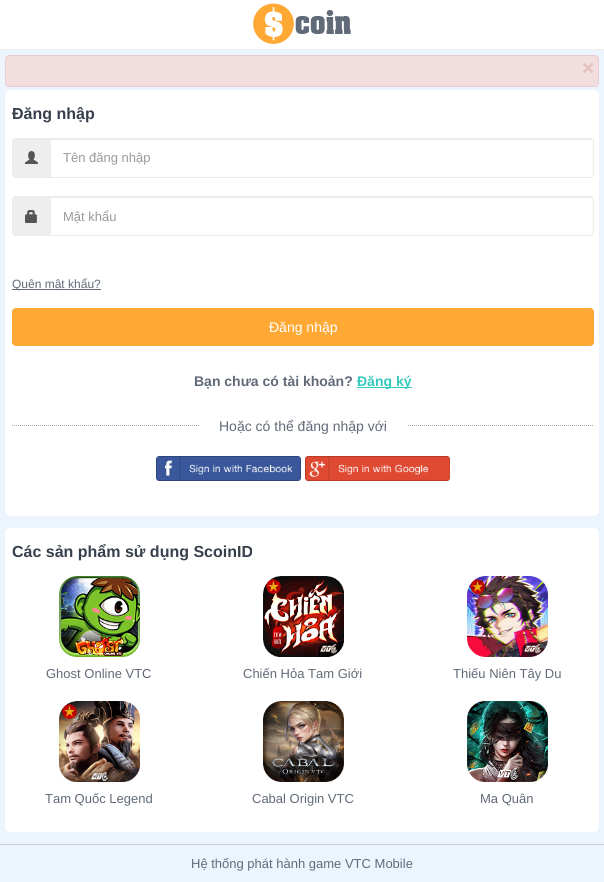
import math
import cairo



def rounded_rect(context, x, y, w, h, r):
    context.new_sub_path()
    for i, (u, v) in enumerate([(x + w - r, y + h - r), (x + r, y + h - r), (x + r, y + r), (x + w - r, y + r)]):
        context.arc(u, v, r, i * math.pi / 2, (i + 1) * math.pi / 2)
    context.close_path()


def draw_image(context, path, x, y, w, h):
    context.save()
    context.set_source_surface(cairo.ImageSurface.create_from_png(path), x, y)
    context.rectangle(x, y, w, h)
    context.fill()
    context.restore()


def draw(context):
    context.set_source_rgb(236 / 255, 245 / 255, 254 / 255)
    context.paint()
    context.set_source_rgb(1, 1, 1)
    context.rectangle(0, 0, 604, 49)
    context.fill()
    context.set_source_rgb(239 / 255, 239 / 255, 239 / 255)
    context.rectangle(0, 49, 604, 1)
    context.fill()
    draw_image(context, "images/1.png", 253, 3, 98, 41)
    context.set_source_rgb(242 / 255, 222 / 255, 222 / 255)
    rounded_rect(context, 5.5, 55.5, 593, 31, 3.5)
    context.fill_preserve()
    context.set_source_rgb(235 / 255, 204 / 255, 209 / 255)
    context.set_line_width(1)
    context.stroke()
    context.set_source_rgb(1, 1, 1)
    rounded_rect(context, 5, 90, 594, 426, 6)
    context.fill()
    context.set_source_rgb(238 / 255, 238 / 255, 238 / 255)
    context.new_path()
    context.move_to(16, 138)
    context.line_to(50, 138)
    context.line_to(50, 178)
    context.line_to(16, 178)
    context.curve_to(14, 178, 12, 176, 12, 174)
    context.line_to(12, 142)
    context.curve_to(12, 140, 14, 138, 16, 138)
    context.close_path()
    context.fill()
    context.set_source_rgb(235 / 255, 235 / 255, 235 / 255)
    context.set_fill_rule(cairo.FillRule.EVEN_ODD)
    context.new_path()
    context.move_to(16, 138)
    context.line_to(50, 138)
    context.line_to(50, 178)
    context.line_to(16, 178)
    context.curve_to(14, 178, 12, 176, 12, 174)
    context.line_to(12, 142)
    context.curve_to(12, 140, 14, 138, 16, 138)
    context.close_path()
    context.move_to(16, 139)
    context.line_to(50, 139)
    context.line_to(50, 177)
    context.line_to(16, 177)
    context.curve_to(14, 177, 13, 176, 13, 174)
    context.line_to(13, 142)
    context.curve_to(13, 140, 14, 139, 16, 139)
    context.close_path()
    context.fill()
    draw_image(context, "images/2.png", 25, 151, 13, 13)
    context.set_source_rgb(236 / 255, 236 / 255, 236 / 255)
    context.set_fill_rule(cairo.FillRule.WINDING)
    context.new_path()
    context.move_to(51, 140)
    context.line_to(590, 140)
    context.curve_to(592, 140, 593, 141, 593, 143)
    context.curve_to(593, 141, 592, 139, 590, 139)
    context.line_to(51, 139)
    context.close_path()
    context.fill()
    context.new_path()
    context.move_to(50.5, 138.5)
    context.line_to(590, 138.5)
    context.curve_to(592, 138.5, 593.5, 140, 593.5, 142)
    context.line_to(593.5, 174)
    context.curve_to(593.5, 176, 592, 177.5, 590, 177.5)
    context.line_to(50.5, 177.5)
    context.close_path()
    context.set_source_rgb(235 / 255, 235 / 255, 235 / 255)
    context.stroke()
    context.set_source_rgb(238 / 255, 238 / 255, 238 / 255)
    context.new_path()
    context.move_to(16, 196)
    context.line_to(50, 196)
    context.line_to(50, 236)
    context.line_to(16, 236)
    context.curve_to(14, 236, 12, 234, 12, 232)
    context.line_to(12, 200)
    context.curve_to(12, 198, 14, 196, 16, 196)
    context.close_path()
    context.fill()
    context.set_source_rgb(235 / 255, 235 / 255, 235 / 255)
    context.set_fill_rule(cairo.FillRule.EVEN_ODD)
    context.new_path()
    context.move_to(16, 196)
    context.line_to(50, 196)
    context.line_to(50, 236)
    context.line_to(16, 236)
    context.curve_to(14, 236, 12, 234, 12, 232)
    context.line_to(12, 200)
    context.curve_to(12, 198, 14, 196, 16, 196)
    context.close_path()
    context.move_to(16, 197)
    context.line_to(50, 197)
    context.line_to(50, 235)
    context.line_to(16, 235)
    context.curve_to(14, 235, 13, 234, 13, 232)
    context.line_to(13, 200)
    context.curve_to(13, 198, 14, 197, 16, 197)
    context.close_path()
    context.fill()
    draw_image(context, "images/3.png", 25, 210, 12, 13)
    context.set_source_rgb(236 / 255, 236 / 255, 236 / 255)
    context.set_fill_rule(cairo.FillRule.WINDING)
    context.new_path()
    context.move_to(51, 198)
    context.line_to(590, 198)
    context.curve_to(592, 198, 593, 199, 593, 201)
    context.curve_to(593, 199, 592, 197, 590, 197)
    context.line_to(51, 197)
    context.close_path()
    context.fill()
    context.new_path()
    context.move_to(50.5, 196.5)
    context.line_to(590, 196.5)
    context.curve_to(592, 196.5, 593.5, 198, 593.5, 200)
    context.line_to(593.5, 232)
    context.curve_to(593.5, 234, 592, 235.5, 590, 235.5)
    context.line_to(50.5, 235.5)
    context.close_path()
    context.set_source_rgb(235 / 255, 235 / 255, 235 / 255)
    context.stroke()
    context.set_source_rgb(97 / 255, 106 / 255, 120 / 255)
    context.rectangle(12, 289, 89, 1)
    context.fill()
    context.set_source_rgb(1, 168 / 255, 52 / 255)
    rounded_rect(context, 12.5, 308.5, 581, 37, 3.5)
    context.fill_preserve()
    context.stroke()
    context.set_source_rgb(51 / 255, 202 / 255, 187 / 255)
    context.rectangle(357, 387, 55, 1)
    context.fill()
    context.new_path()
    context.move_to(12, 425.5)
    context.line_to(594, 425.5)
    context.set_source_rgb(169 / 255, 169 / 255, 169 / 255)
    context.set_dash([1, 1])
    context.stroke()
    context.set_source_rgb(1, 1, 1)
    context.rectangle(200, 425, 207, 1)
    context.fill()
    draw_image(context, "images/4.png", 156, 456, 145, 25)
    draw_image(context, "images/5.png", 305, 456, 145, 25)
    rounded_rect(context, 5, 528, 594, 304, 6)
    context.fill()
    draw_image(context, "images/6.png", 59, 576, 81, 81)
    draw_image(context, "images/7.png", 263, 576, 81, 81)
    draw_image(context, "images/8.png", 467, 576, 81, 81)
    draw_image(context, "images/9.png", 59, 701, 81, 81)
    draw_image(context, "images/10.png", 263, 701, 81, 81)
    draw_image(context, "images/11.png", 467, 701, 81, 81)
    context.set_source_rgb(204 / 255, 204 / 255, 204 / 255)
    context.rectangle(0, 844, 604, 1)
    context.fill()
    context.select_font_face("Liberation Sans", cairo.FontSlant.NORMAL, cairo.FontWeight.BOLD)
    context.set_font_size(21)
    context.set_source_rgb(227 / 255, 191 / 255, 191 / 255)
    context.move_to(582, 75)
    context.show_text("×")
    context.set_font_size(16)
    context.set_source_rgb(55 / 255, 64 / 255, 77 / 255)
    context.move_to(12, 119)
    context.show_text("Đăng nhập")
    context.select_font_face("Liberation Sans")
    context.set_font_size(13)
    context.set_source_rgb(153 / 255, 153 / 255, 153 / 255)
    context.move_to(63, 162)
    context.show_text("Tên đăng nhập")
    context.move_to(63, 221)
    context.show_text("Mật khẩu")
    context.set_font_size(12)
    context.set_source_rgb(97 / 255, 106 / 255, 120 / 255)
    context.move_to(12, 288)
    context.show_text("Quên mật khẩu?")
    context.set_font_size(14)
    context.set_source_rgb(1, 1, 1)
    context.move_to(269, 332)
    context.show_text("Đăng nhập")
    context.select_font_face("Liberation Sans", cairo.FontSlant.NORMAL, cairo.FontWeight.BOLD)
    context.set_source_rgb(97 / 255, 106 / 255, 120 / 255)
    context.move_to(194, 386)
    context.show_text("Bạn chưa có tài khoản?")
    context.set_source_rgb(51 / 255, 202 / 255, 187 / 255)
    context.move_to(357, 386)
    context.show_text("Đăng ký")
    context.select_font_face("Liberation Sans")
    context.set_source_rgb(97 / 255, 106 / 255, 120 / 255)
    context.move_to(219, 431)
    context.show_text("Hoặc có thể đăng nhập với")
    context.select_font_face("Liberation Sans", cairo.FontSlant.NORMAL, cairo.FontWeight.BOLD)
    context.set_font_size(16)
    context.set_source_rgb(55 / 255, 64 / 255, 77 / 255)
    context.move_to(12, 557)
    context.show_text("Các sản phẩm sử dụng ScoinID")
    context.select_font_face("Liberation Sans")
    context.set_font_size(13)
    context.set_source_rgb(97 / 255, 106 / 255, 120 / 255)
    context.move_to(46, 678)
    context.show_text("Ghost Online VTC")
    context.move_to(243, 678)
    context.show_text("Chiến Hỏa Tam Giới")
    context.move_to(453, 678)
    context.show_text("Thiếu Niên Tây Du")
    context.move_to(45, 803)
    context.show_text("Tam Quốc Legend")
    context.move_to(252, 803)
    context.show_text("Cabal Origin VTC")
    context.move_to(480, 803)
    context.show_text("Ma Quân")
    context.move_to(191, 868)
    context.show_text("Hệ thống phát hành game VTC Mobile")


surface = cairo.ImageSurface(cairo.Format.RGB24, 604, 882)
context = cairo.Context(surface)
options = cairo.FontOptions()
options.set_hint_metrics(cairo.HintMetrics.OFF)
options.set_hint_style(cairo.HintStyle.NONE)
context.set_font_options(options)
context.set_miter_limit(4)
draw(context)
surface.write_to_png("out.png")
